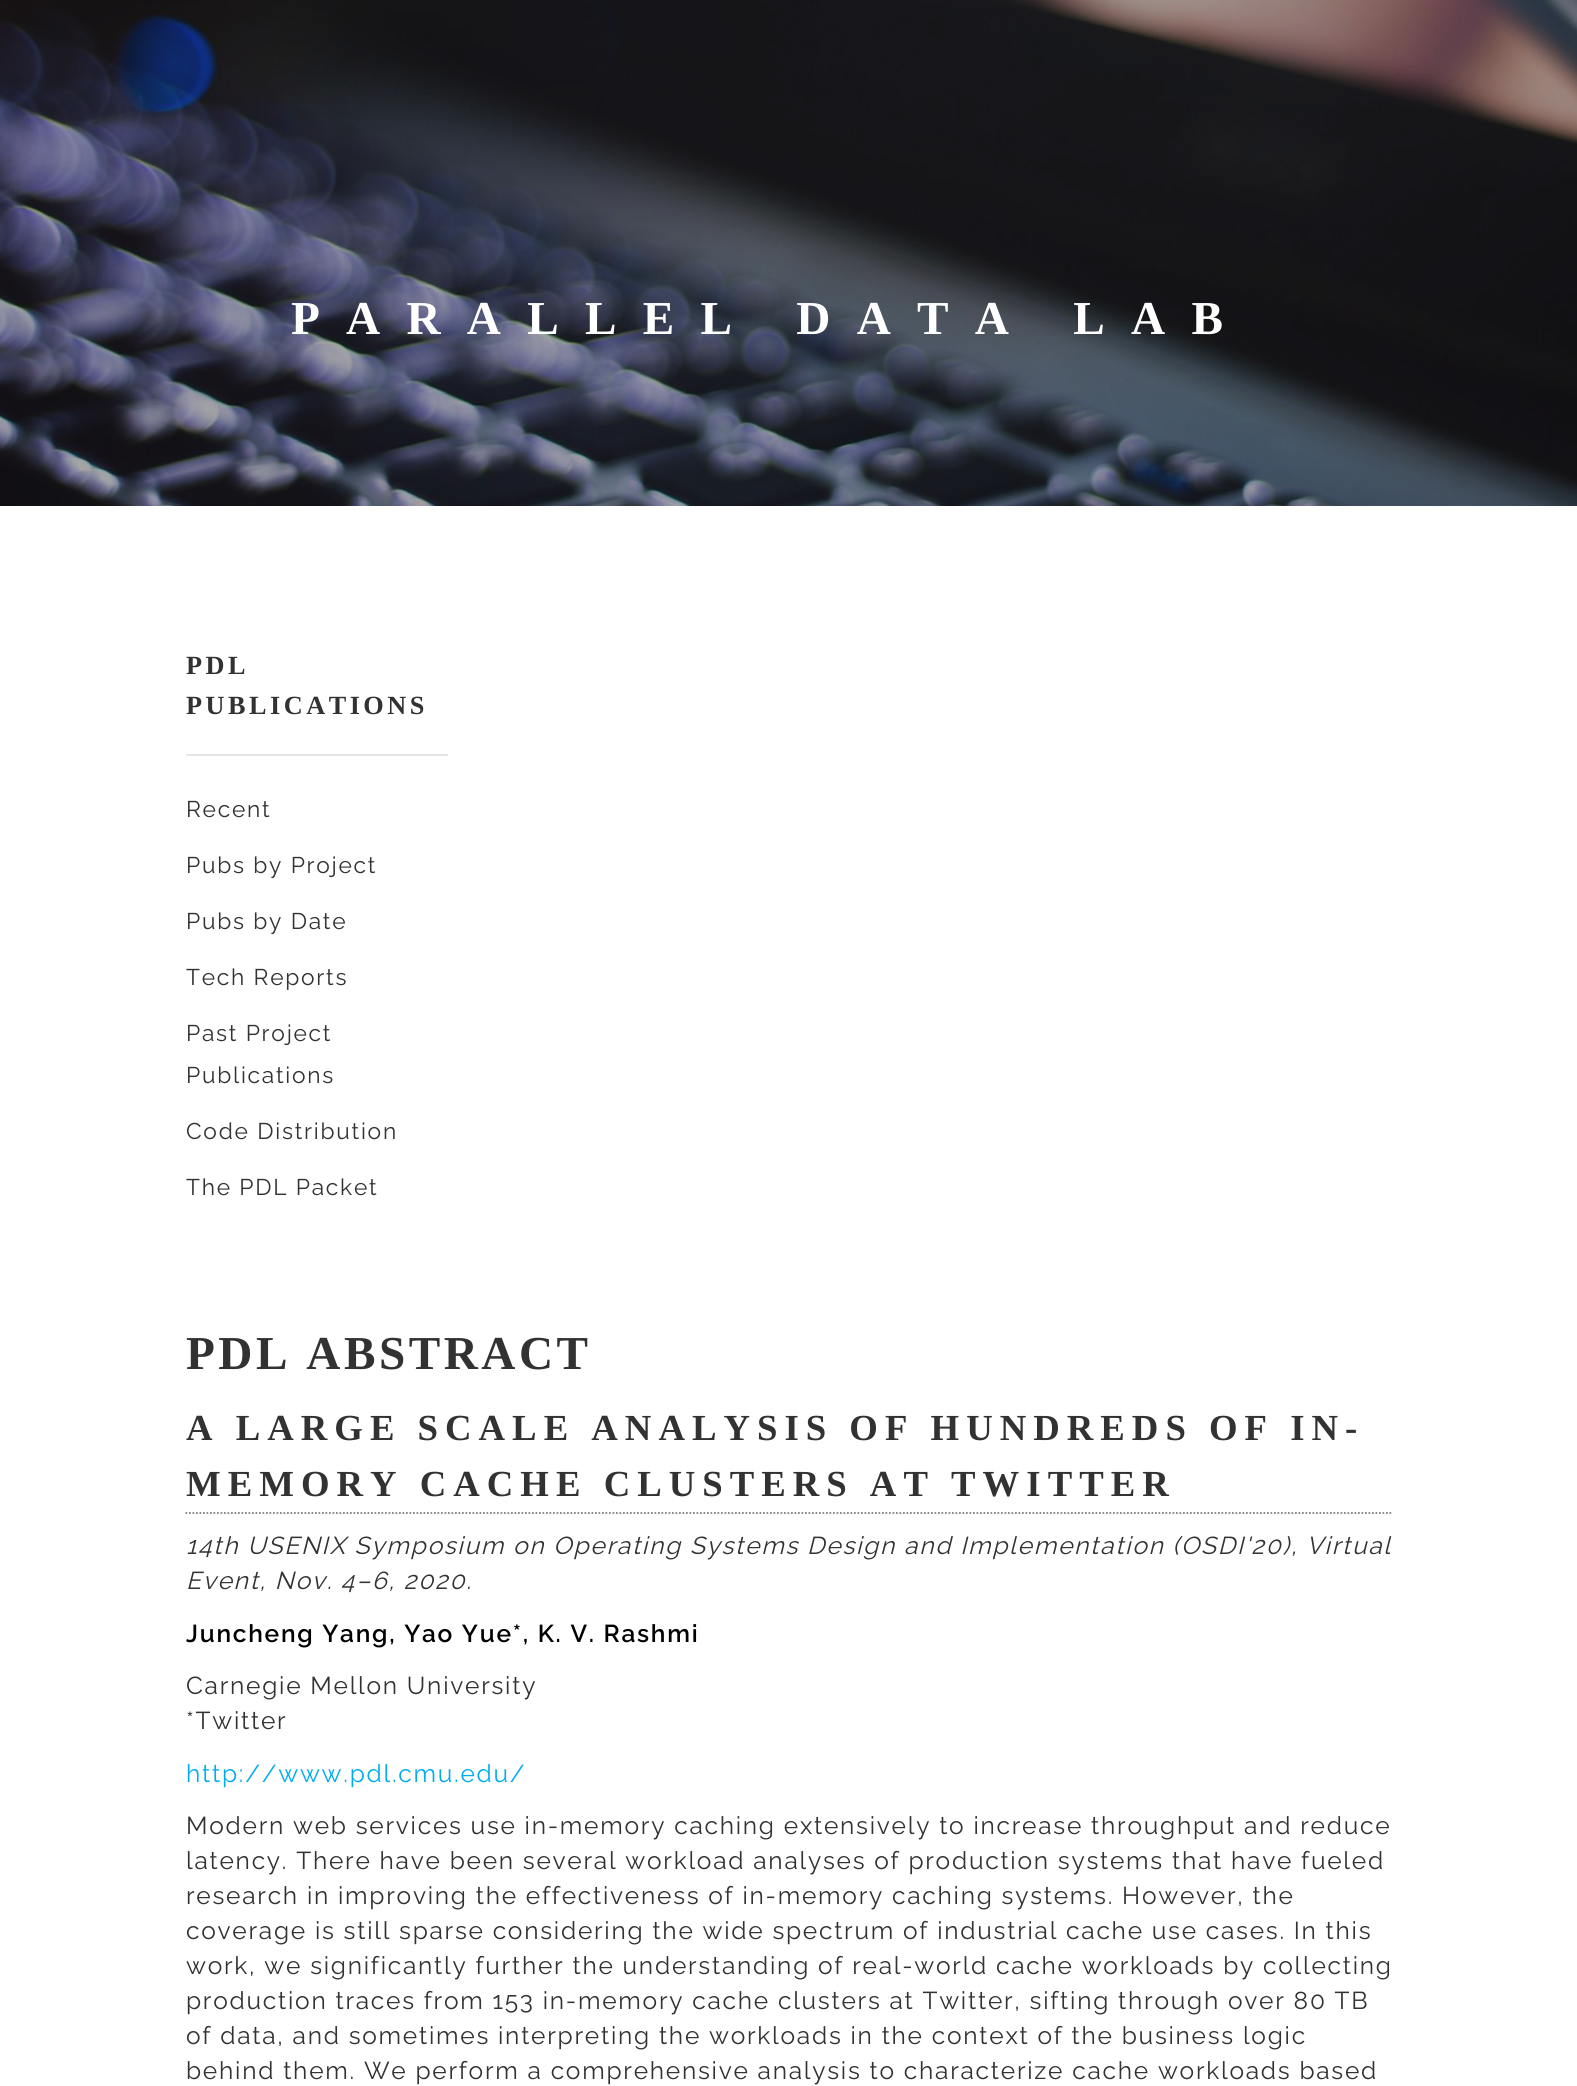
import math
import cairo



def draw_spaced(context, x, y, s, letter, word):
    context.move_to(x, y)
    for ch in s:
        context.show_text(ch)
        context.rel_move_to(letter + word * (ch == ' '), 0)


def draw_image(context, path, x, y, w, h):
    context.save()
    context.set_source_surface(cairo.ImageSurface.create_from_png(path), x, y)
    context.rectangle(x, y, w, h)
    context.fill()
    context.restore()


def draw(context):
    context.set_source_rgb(1, 1, 1)
    context.paint()
    draw_image(context, "images/1.png", 0, 0, 1577, 506)
    context.set_source_rgb(230 / 255, 230 / 255, 230 / 255)
    context.rectangle(186, 754, 262, 2)
    context.fill()
    context.new_path()
    context.move_to(185.5, 1513)
    context.line_to(1393, 1513)
    context.set_source_rgb(128 / 255, 128 / 255, 128 / 255)
    context.set_line_width(1.8)
    context.set_dash([1.75, 1.75])
    context.stroke()
    context.select_font_face("Liberation Serif", cairo.FontSlant.NORMAL, cairo.FontWeight.BOLD)
    context.set_font_size(47.25)
    context.set_source_rgb(1, 1, 1)
    draw_spaced(context, 291, 334, "PARALLEL DATA LAB", 26.25, 0)
    context.set_font_size(26.25)
    context.set_source_rgb(50 / 255, 50 / 255, 50 / 255)
    draw_spaced(context, 186, 674, "PDL", 3.5, 0)
    draw_spaced(context, 186, 714, "PUBLICATIONS", 3.5, 0)
    context.select_font_face("Raleway")
    context.set_font_size(22.75)
    draw_spaced(context, 186, 817, "Recent", 1.75, 0)
    draw_spaced(context, 186, 873, "Pubs by Project", 1.75, 0)
    draw_spaced(context, 186, 929, "Pubs by Date", 1.75, 0)
    draw_spaced(context, 186, 985, "Tech Reports", 1.75, 0)
    draw_spaced(context, 186, 1041, "Past Project", 1.75, 0)
    draw_spaced(context, 186, 1083, "Publications", 1.75, 0)
    draw_spaced(context, 186, 1139, "Code Distribution", 1.75, 0)
    draw_spaced(context, 186, 1195, "The PDL Packet", 1.75, 0)
    context.select_font_face("Liberation Serif", cairo.FontSlant.NORMAL, cairo.FontWeight.BOLD)
    context.set_font_size(47.25)
    draw_spaced(context, 186, 1369, "PDL ABSTRACT", 3.5, 0)
    context.set_font_size(36.75)
    draw_spaced(context, 186, 1440, "A LARGE SCALE ANALYSIS OF HUNDREDS OF IN-", 7, 0)
    draw_spaced(context, 186, 1496, "MEMORY CACHE CLUSTERS AT TWITTER", 7, 0)
    context.select_font_face("Raleway", cairo.FontSlant.ITALIC)
    context.set_font_size(24.5)
    draw_spaced(context, 186, 1554, "14th USENIX Symposium on Operating Systems Design and Implementation (OSDI'20), Virtual", 1.75, 0)
    draw_spaced(context, 186, 1589, "Event, Nov. 4–6, 2020.", 1.75, 0)
    context.select_font_face("Raleway SemiBold")
    context.set_source_rgb(0, 0, 0)
    draw_spaced(context, 186, 1642, "Juncheng Yang, Yao Yue*, K. V. Rashmi", 1.75, 0)
    context.select_font_face("Raleway")
    context.set_source_rgb(50 / 255, 50 / 255, 50 / 255)
    draw_spaced(context, 186, 1694, "Carnegie Mellon University", 1.75, 0)
    draw_spaced(context, 186, 1729, "*Twitter", 1.75, 0)
    context.set_source_rgb(0, 173 / 255, 239 / 255)
    draw_spaced(context, 186, 1782, "http://www.pdl.cmu.edu/", 1.75, 0)
    context.set_source_rgb(50 / 255, 50 / 255, 50 / 255)
    draw_spaced(context, 186, 1834, "Modern web services use in-memory caching extensively to increase throughput and reduce", 1.75, 0)
    draw_spaced(context, 186, 1869, "latency. There have been several workload analyses of production systems that have fueled", 1.75, 0)
    draw_spaced(context, 186, 1904, "research in improving the effectiveness of in-memory caching systems. However, the", 1.75, 0)
    draw_spaced(context, 186, 1939, "coverage is still sparse considering the wide spectrum of industrial cache use cases. In this", 1.75, 0)
    draw_spaced(context, 186, 1974, "work, we significantly further the understanding of real-world cache workloads by collecting", 1.75, 0)
    draw_spaced(context, 186, 2009, "production traces from 153 in-memory cache clusters at Twitter, sifting through over 80 TB", 1.75, 0)
    draw_spaced(context, 186, 2044, "of data, and sometimes interpreting the workloads in the context of the business logic", 1.75, 0)
    draw_spaced(context, 186, 2079, "behind them. We perform a comprehensive analysis to characterize cache workloads based", 1.75, 0)


surface = cairo.ImageSurface(cairo.Format.RGB24, 1577, 2086)
context = cairo.Context(surface)
options = cairo.FontOptions()
options.set_hint_metrics(cairo.HintMetrics.OFF)
options.set_hint_style(cairo.HintStyle.NONE)
context.set_font_options(options)
context.set_miter_limit(4)
draw(context)
surface.write_to_png("out.png")
